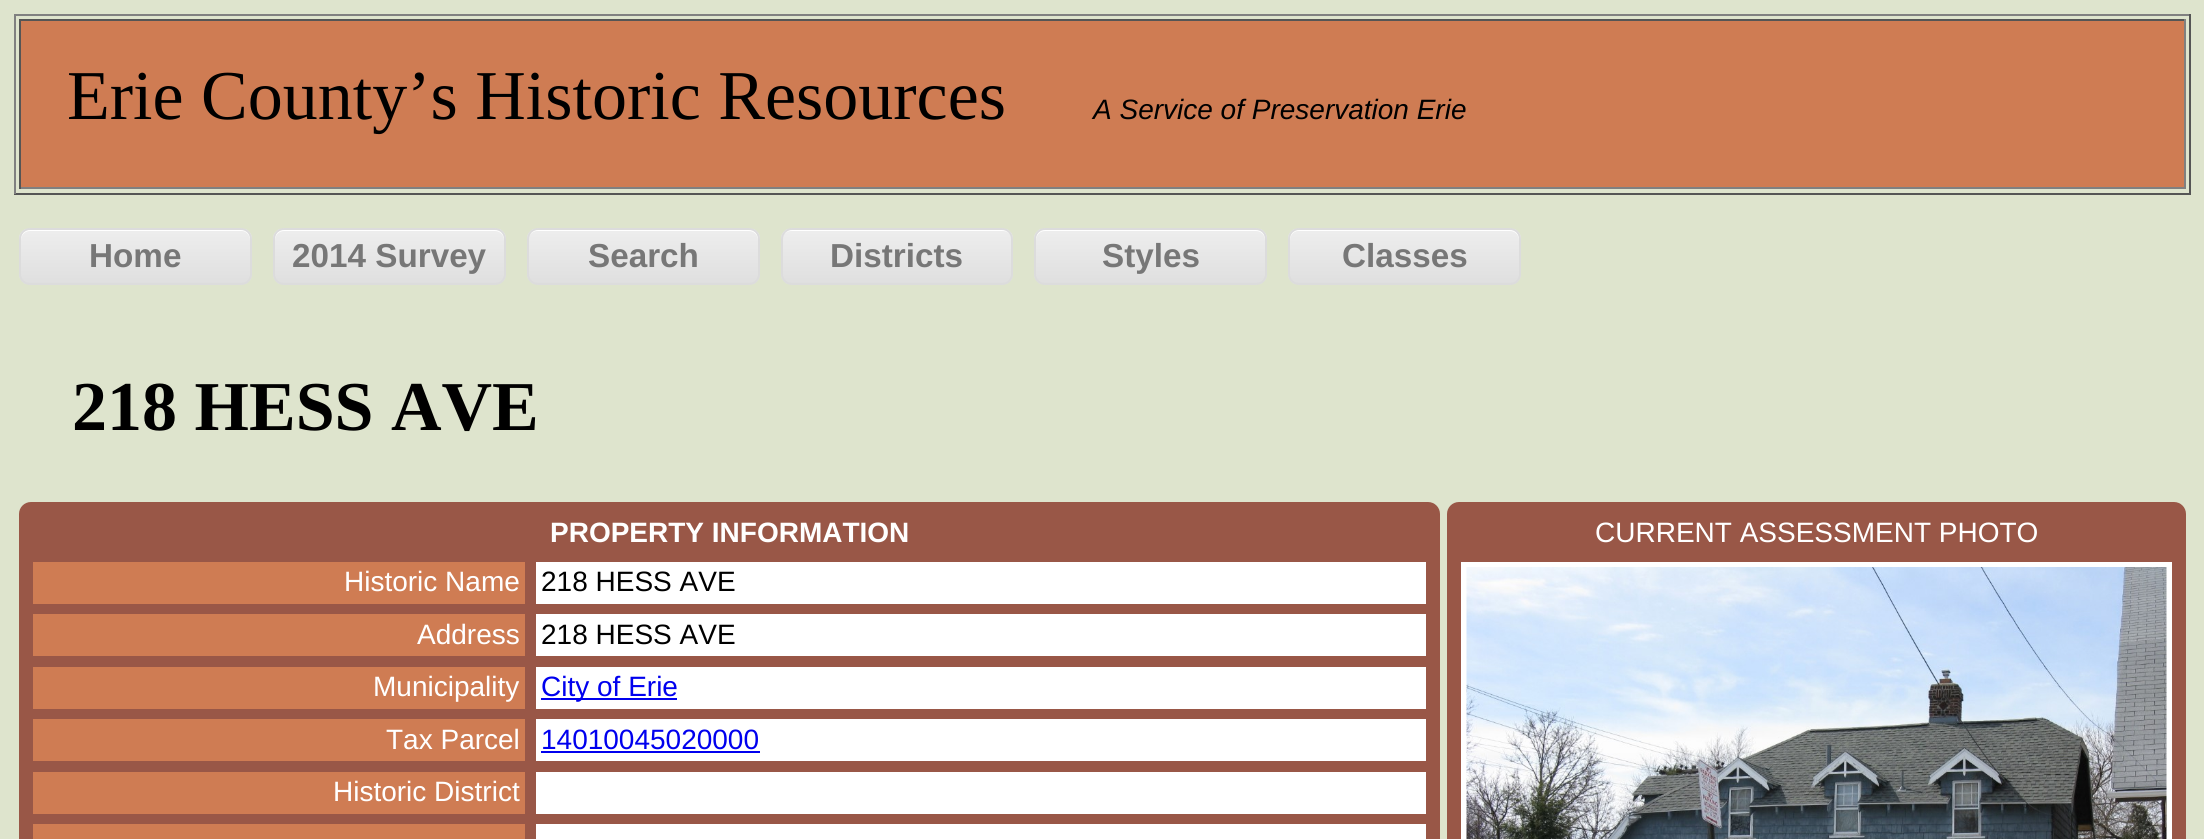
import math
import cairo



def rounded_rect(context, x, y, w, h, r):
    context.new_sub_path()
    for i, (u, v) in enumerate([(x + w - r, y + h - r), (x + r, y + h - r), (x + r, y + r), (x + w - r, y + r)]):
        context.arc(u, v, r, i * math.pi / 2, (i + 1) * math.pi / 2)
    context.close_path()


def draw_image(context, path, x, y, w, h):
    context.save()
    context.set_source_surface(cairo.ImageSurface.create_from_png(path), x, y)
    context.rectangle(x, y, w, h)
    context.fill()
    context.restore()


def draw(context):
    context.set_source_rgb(222 / 255, 228 / 255, 205 / 255)
    context.paint()
    context.set_source_rgb(128 / 255, 128 / 255, 128 / 255)
    context.rectangle(14, 14, 2177, 2)
    context.fill()
    context.set_source_rgb(85 / 255, 85 / 255, 85 / 255)
    context.rectangle(2189, 14, 2, 180)
    context.fill()
    context.rectangle(14, 193, 2177, 2)
    context.fill()
    context.set_source_rgb(128 / 255, 128 / 255, 128 / 255)
    context.rectangle(14, 14, 2, 180)
    context.fill()
    context.set_source_rgb(207 / 255, 124 / 255, 83 / 255)
    context.rectangle(21, 21, 2163, 166)
    context.fill()
    context.set_source_rgb(85 / 255, 85 / 255, 85 / 255)
    context.rectangle(19, 19, 2167, 2)
    context.fill()
    context.set_source_rgb(128 / 255, 128 / 255, 128 / 255)
    context.rectangle(2184, 19, 2, 170)
    context.fill()
    context.rectangle(19, 187, 2167, 2)
    context.fill()
    context.set_source_rgb(85 / 255, 85 / 255, 85 / 255)
    context.rectangle(19, 19, 2, 170)
    context.fill()
    context.save()
    rounded_rect(context, 19, 228, 233, 57, 11)
    context.clip()
    gradient = cairo.LinearGradient(21, 229, 21, 284)
    gradient.add_color_stop_rgba(0.05, 237 / 255, 237 / 255, 237 / 255, 1)
    gradient.add_color_stop_rgba(1, 223 / 255, 223 / 255, 223 / 255, 1)
    context.set_source(gradient)
    context.rectangle(19, 229, 233, 55)
    context.fill()
    context.restore()
    context.set_source_rgb(1, 1, 1)
    context.new_path()
    context.move_to(30, 231)
    context.line_to(242, 231)
    context.curve_to(246, 231, 250, 235, 250, 240)
    context.line_to(250, 238)
    context.curve_to(250, 233, 246, 229, 241, 229)
    context.line_to(30, 229)
    context.curve_to(25, 229, 21, 233, 21, 238)
    context.line_to(21, 240)
    context.curve_to(21, 235, 25, 231, 30, 231)
    context.close_path()
    context.fill()
    rounded_rect(context, 20, 229, 231, 55, 10)
    context.set_source_rgb(220 / 255, 220 / 255, 220 / 255)
    context.stroke()
    context.save()
    rounded_rect(context, 273, 228, 233, 57, 11)
    context.clip()
    gradient = cairo.LinearGradient(275, 229, 275, 284)
    gradient.add_color_stop_rgba(0.05, 237 / 255, 237 / 255, 237 / 255, 1)
    gradient.add_color_stop_rgba(1, 223 / 255, 223 / 255, 223 / 255, 1)
    context.set_source(gradient)
    context.rectangle(273, 229, 233, 55)
    context.fill()
    context.restore()
    context.set_source_rgb(1, 1, 1)
    context.new_path()
    context.move_to(284, 231)
    context.line_to(495, 231)
    context.curve_to(500, 231, 504, 235, 504, 240)
    context.line_to(504, 238)
    context.curve_to(504, 233, 500, 229, 495, 229)
    context.line_to(284, 229)
    context.curve_to(279, 229, 275, 233, 275, 238)
    context.line_to(275, 240)
    context.curve_to(275, 235, 279, 231, 284, 231)
    context.close_path()
    context.fill()
    rounded_rect(context, 274, 229, 231, 55, 10)
    context.set_source_rgb(220 / 255, 220 / 255, 220 / 255)
    context.stroke()
    context.save()
    rounded_rect(context, 527, 228, 233, 57, 11)
    context.clip()
    gradient = cairo.LinearGradient(529, 229, 529, 284)
    gradient.add_color_stop_rgba(0.05, 237 / 255, 237 / 255, 237 / 255, 1)
    gradient.add_color_stop_rgba(1, 223 / 255, 223 / 255, 223 / 255, 1)
    context.set_source(gradient)
    context.rectangle(527, 229, 233, 55)
    context.fill()
    context.restore()
    context.set_source_rgb(1, 1, 1)
    context.new_path()
    context.move_to(537, 231)
    context.line_to(749, 231)
    context.curve_to(754, 231, 758, 235, 758, 240)
    context.line_to(758, 238)
    context.curve_to(758, 233, 754, 229, 749, 229)
    context.line_to(538, 229)
    context.curve_to(534, 229, 531, 231, 530, 235)
    context.curve_to(531, 233, 534, 231, 537, 231)
    context.close_path()
    context.fill()
    rounded_rect(context, 528, 229, 231, 55, 10)
    context.set_source_rgb(220 / 255, 220 / 255, 220 / 255)
    context.stroke()
    context.save()
    rounded_rect(context, 781, 228, 232, 57, 11)
    context.clip()
    gradient = cairo.LinearGradient(782, 229, 782, 284)
    gradient.add_color_stop_rgba(0.05, 237 / 255, 237 / 255, 237 / 255, 1)
    gradient.add_color_stop_rgba(1, 223 / 255, 223 / 255, 223 / 255, 1)
    context.set_source(gradient)
    context.rectangle(781, 229, 232, 55)
    context.fill()
    context.restore()
    context.set_source_rgb(1, 1, 1)
    context.new_path()
    context.move_to(791, 231)
    context.line_to(1003, 231)
    context.curve_to(1008, 231, 1012, 235, 1012, 240)
    context.line_to(1012, 238)
    context.curve_to(1012, 233, 1008, 229, 1003, 229)
    context.line_to(791, 229)
    context.curve_to(786, 229, 782, 233, 782, 238)
    context.line_to(782, 240)
    context.curve_to(782, 235, 786, 231, 791, 231)
    context.close_path()
    context.fill()
    rounded_rect(context, 782, 229, 230, 55, 10)
    context.set_source_rgb(220 / 255, 220 / 255, 220 / 255)
    context.stroke()
    context.save()
    rounded_rect(context, 1034, 228, 233, 57, 11)
    context.clip()
    gradient = cairo.LinearGradient(1036, 229, 1036, 284)
    gradient.add_color_stop_rgba(0.05, 237 / 255, 237 / 255, 237 / 255, 1)
    gradient.add_color_stop_rgba(1, 223 / 255, 223 / 255, 223 / 255, 1)
    context.set_source(gradient)
    context.rectangle(1034, 229, 233, 55)
    context.fill()
    context.restore()
    context.set_source_rgb(1, 1, 1)
    context.new_path()
    context.move_to(1045, 231)
    context.line_to(1256, 231)
    context.curve_to(1261, 231, 1265, 235, 1265, 240)
    context.line_to(1265, 238)
    context.curve_to(1265, 233, 1261, 229, 1256, 229)
    context.line_to(1045, 229)
    context.curve_to(1040, 229, 1036, 233, 1036, 238)
    context.line_to(1036, 240)
    context.curve_to(1036, 235, 1040, 231, 1045, 231)
    context.close_path()
    context.fill()
    rounded_rect(context, 1035, 229, 231, 55, 10)
    context.set_source_rgb(220 / 255, 220 / 255, 220 / 255)
    context.stroke()
    context.save()
    rounded_rect(context, 1288, 228, 233, 57, 11)
    context.clip()
    gradient = cairo.LinearGradient(1290, 229, 1290, 284)
    gradient.add_color_stop_rgba(0.05, 237 / 255, 237 / 255, 237 / 255, 1)
    gradient.add_color_stop_rgba(1, 223 / 255, 223 / 255, 223 / 255, 1)
    context.set_source(gradient)
    context.rectangle(1288, 229, 233, 55)
    context.fill()
    context.restore()
    context.set_source_rgb(1, 1, 1)
    context.new_path()
    context.move_to(1298, 231)
    context.line_to(1510, 231)
    context.curve_to(1515, 231, 1519, 235, 1519, 240)
    context.line_to(1519, 238)
    context.curve_to(1519, 233, 1515, 229, 1510, 229)
    context.line_to(1299, 229)
    context.curve_to(1294, 229, 1290, 233, 1290, 238)
    context.line_to(1290, 240)
    context.curve_to(1290, 235, 1294, 231, 1298, 231)
    context.close_path()
    context.fill()
    rounded_rect(context, 1289, 229, 231, 55, 10)
    context.set_source_rgb(220 / 255, 220 / 255, 220 / 255)
    context.stroke()
    context.set_source_rgb(153 / 255, 87 / 255, 71 / 255)
    rounded_rect(context, 22.5, 505.5, 1414, 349, 8.5)
    context.fill_preserve()
    context.set_line_width(7)
    context.stroke()
    context.set_source_rgb(207 / 255, 124 / 255, 83 / 255)
    context.rectangle(33, 562, 492, 42)
    context.fill()
    context.set_source_rgb(1, 1, 1)
    context.rectangle(536, 562, 890, 42)
    context.fill()
    context.set_source_rgb(207 / 255, 124 / 255, 83 / 255)
    context.rectangle(33, 614, 492, 42)
    context.fill()
    context.set_source_rgb(1, 1, 1)
    context.rectangle(536, 614, 890, 42)
    context.fill()
    context.set_source_rgb(207 / 255, 124 / 255, 83 / 255)
    context.rectangle(33, 667, 492, 42)
    context.fill()
    context.set_source_rgb(1, 1, 1)
    context.rectangle(536, 667, 890, 42)
    context.fill()
    context.set_source_rgb(0, 0, 238 / 255)
    context.rectangle(541, 698, 136, 2)
    context.fill()
    context.set_source_rgb(207 / 255, 124 / 255, 83 / 255)
    context.rectangle(33, 719, 492, 42)
    context.fill()
    context.set_source_rgb(1, 1, 1)
    context.rectangle(536, 719, 890, 42)
    context.fill()
    context.set_source_rgb(0, 0, 238 / 255)
    context.rectangle(541, 751, 219, 2)
    context.fill()
    context.set_source_rgb(207 / 255, 124 / 255, 83 / 255)
    context.rectangle(33, 772, 492, 42)
    context.fill()
    context.set_source_rgb(1, 1, 1)
    context.rectangle(536, 772, 890, 42)
    context.fill()
    context.set_source_rgb(207 / 255, 124 / 255, 83 / 255)
    context.rectangle(33, 824, 492, 15)
    context.fill()
    context.set_source_rgb(1, 1, 1)
    context.rectangle(536, 824, 890, 15)
    context.fill()
    context.set_source_rgb(153 / 255, 87 / 255, 71 / 255)
    rounded_rect(context, 1450.5, 505.5, 732, 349, 8.5)
    context.fill_preserve()
    context.stroke()
    context.set_source_rgb(1, 1, 1)
    context.rectangle(1461, 562, 711, 277)
    context.fill()
    draw_image(context, "images/1.png", 1466, 567, 701, 272)
    context.select_font_face("Liberation Serif")
    context.set_font_size(70)
    context.set_source_rgb(0, 0, 0)
    context.move_to(67, 119)
    context.show_text("Erie County’s Historic Resources")
    context.select_font_face("Liberation Sans", cairo.FontSlant.ITALIC)
    context.set_font_size(28)
    context.move_to(1093, 119)
    context.show_text("A Service of Preservation Erie")
    context.select_font_face("Liberation Sans", cairo.FontSlant.NORMAL, cairo.FontWeight.BOLD)
    context.set_font_size(33.25)
    context.set_source_rgb(119 / 255, 119 / 255, 119 / 255)
    context.move_to(89, 267)
    context.show_text("Home")
    context.move_to(292, 267)
    context.show_text("2014 Survey")
    context.move_to(588, 267)
    context.show_text("Search")
    context.move_to(830, 267)
    context.show_text("Districts")
    context.move_to(1102, 267)
    context.show_text("Styles")
    context.move_to(1342, 267)
    context.show_text("Classes")
    context.select_font_face("Liberation Serif", cairo.FontSlant.NORMAL, cairo.FontWeight.BOLD)
    context.set_font_size(70)
    context.set_source_rgb(0, 0, 0)
    context.move_to(72, 430)
    context.show_text("218 HESS AVE")
    context.select_font_face("Liberation Sans", cairo.FontSlant.NORMAL, cairo.FontWeight.BOLD)
    context.set_font_size(28)
    context.set_source_rgb(1, 1, 1)
    context.move_to(550, 542)
    context.show_text("PROPERTY INFORMATION")
    context.select_font_face("Liberation Sans")
    context.move_to(344, 591)
    context.show_text("Historic Name")
    context.set_source_rgb(0, 0, 0)
    context.move_to(541, 591)
    context.show_text("218 HESS AVE")
    context.set_source_rgb(1, 1, 1)
    context.move_to(417, 644)
    context.show_text("Address")
    context.set_source_rgb(0, 0, 0)
    context.move_to(541, 644)
    context.show_text("218 HESS AVE")
    context.set_source_rgb(1, 1, 1)
    context.move_to(373, 696)
    context.show_text("Municipality")
    context.set_source_rgb(0, 0, 238 / 255)
    context.move_to(541, 696)
    context.show_text("City of Erie")
    context.set_source_rgb(1, 1, 1)
    context.move_to(386, 749)
    context.show_text("Tax Parcel")
    context.set_source_rgb(0, 0, 238 / 255)
    context.move_to(541, 749)
    context.show_text("14010045020000")
    context.set_source_rgb(1, 1, 1)
    context.move_to(333, 801)
    context.show_text("Historic District")
    context.move_to(1595, 542)
    context.show_text("CURRENT ASSESSMENT PHOTO")


surface = cairo.ImageSurface(cairo.Format.RGB24, 2204, 839)
context = cairo.Context(surface)
options = cairo.FontOptions()
options.set_hint_metrics(cairo.HintMetrics.OFF)
options.set_hint_style(cairo.HintStyle.NONE)
context.set_font_options(options)
context.set_miter_limit(4)
draw(context)
surface.write_to_png("out.png")
